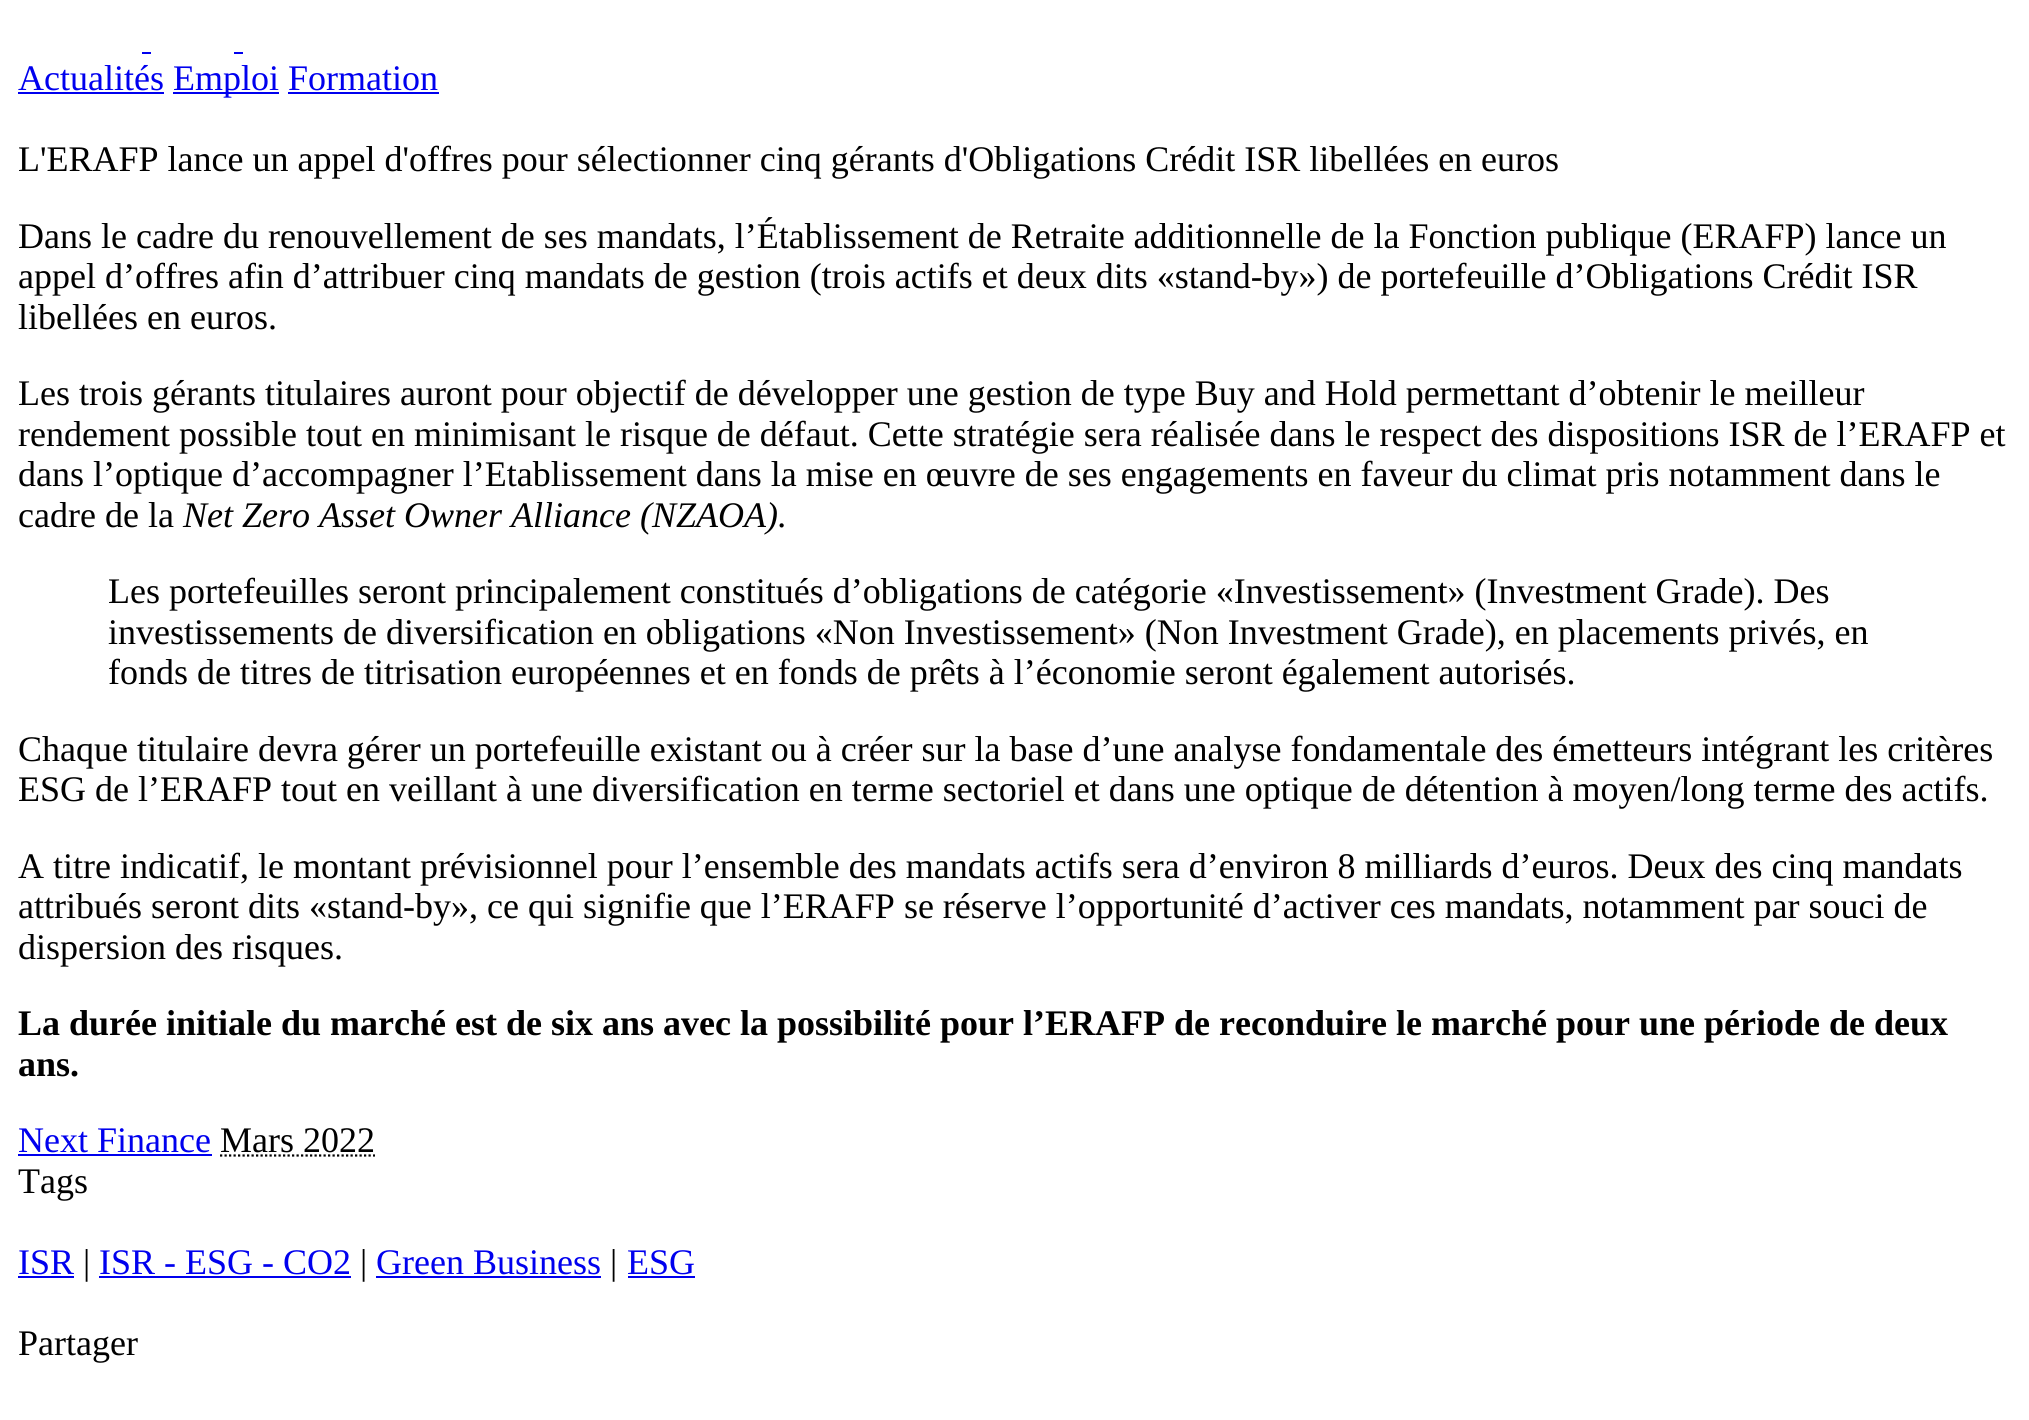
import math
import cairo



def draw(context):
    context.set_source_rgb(1, 1, 1)
    context.paint()
    context.set_source_rgb(0, 0, 238 / 255)
    context.rectangle(142, 52, 9, 2)
    context.fill()
    context.rectangle(234, 52, 9, 2)
    context.fill()
    context.rectangle(18, 92, 146, 2)
    context.fill()
    context.rectangle(173, 92, 106, 2)
    context.fill()
    context.rectangle(288, 92, 151, 2)
    context.fill()
    context.rectangle(18, 1154, 194, 2)
    context.fill()
    context.new_path()
    context.move_to(220, 1155.5)
    context.line_to(375, 1155.5)
    context.set_source_rgb(0, 0, 0)
    context.set_line_width(2.2)
    context.set_dash([2.25, 2.25])
    context.stroke()
    context.set_source_rgb(0, 0, 238 / 255)
    context.rectangle(18, 1276, 56, 2)
    context.fill()
    context.rectangle(99, 1276, 252, 2)
    context.fill()
    context.rectangle(376, 1276, 225, 2)
    context.fill()
    context.rectangle(628, 1276, 67, 2)
    context.fill()
    context.select_font_face("Liberation Serif")
    context.set_font_size(36)
    context.move_to(18, 90)
    context.show_text("Actualités")
    context.move_to(173, 90)
    context.show_text("Emploi Formation")
    context.set_source_rgb(0, 0, 0)
    context.move_to(18, 171)
    context.show_text("L'ERAFP lance un appel d'offres pour sélectionner cinq gérants d'Obligations Crédit ISR libellées en euros")
    context.move_to(18, 248)
    context.show_text("Dans le cadre du renouvellement de ses mandats, l’Établissement de Retraite additionnelle de la Fonction publique (ERAFP) lance un")
    context.move_to(18, 288)
    context.show_text("appel d’offres afin d’attribuer cinq mandats de gestion (trois actifs et deux dits «stand-by») de portefeuille d’Obligations Crédit ISR")
    context.move_to(18, 329)
    context.show_text("libellées en euros.")
    context.move_to(18, 405)
    context.show_text("Les trois gérants titulaires auront pour objectif de développer une gestion de type Buy and Hold permettant d’obtenir le meilleur")
    context.move_to(18, 446)
    context.show_text("rendement possible tout en minimisant le risque de défaut. Cette stratégie sera réalisée dans le respect des dispositions ISR de l’ERAFP et")
    context.move_to(18, 486)
    context.show_text("dans l’optique d’accompagner l’Etablissement dans la mise en œuvre de ses engagements en faveur du climat pris notamment dans le")
    context.move_to(18, 527)
    context.show_text("cadre de la")
    context.select_font_face("Liberation Serif", cairo.FontSlant.ITALIC)
    context.move_to(183, 527)
    context.show_text("Net Zero Asset Owner Alliance (NZAOA).")
    context.select_font_face("Liberation Serif")
    context.move_to(108, 603)
    context.show_text("Les portefeuilles seront principalement constitués d’obligations de catégorie «Investissement» (Investment Grade). Des")
    context.move_to(108, 644)
    context.show_text("investissements de diversification en obligations «Non Investissement» (Non Investment Grade), en placements privés, en")
    context.move_to(108, 684)
    context.show_text("fonds de titres de titrisation européennes et en fonds de prêts à l’économie seront également autorisés.")
    context.move_to(18, 761)
    context.show_text("Chaque titulaire devra gérer un portefeuille existant ou à créer sur la base d’une analyse fondamentale des émetteurs intégrant les critères")
    context.move_to(18, 801)
    context.show_text("ESG de l’ERAFP tout en veillant à une diversification en terme sectoriel et dans une optique de détention à moyen/long terme des actifs.")
    context.move_to(18, 878)
    context.show_text("A titre indicatif, le montant prévisionnel pour l’ensemble des mandats actifs sera d’environ 8 milliards d’euros. Deux des cinq mandats")
    context.move_to(18, 918)
    context.show_text("attribués seront dits «stand-by», ce qui signifie que l’ERAFP se réserve l’opportunité d’activer ces mandats, notamment par souci de")
    context.move_to(18, 959)
    context.show_text("dispersion des risques.")
    context.select_font_face("Liberation Serif", cairo.FontSlant.NORMAL, cairo.FontWeight.BOLD)
    context.move_to(18, 1035)
    context.show_text("La durée initiale du marché est de six ans avec la possibilité pour l’ERAFP de reconduire le marché pour une période de deux")
    context.move_to(18, 1076)
    context.show_text("ans.")
    context.select_font_face("Liberation Serif")
    context.set_source_rgb(0, 0, 238 / 255)
    context.move_to(18, 1152)
    context.show_text("Next Finance")
    context.set_source_rgb(0, 0, 0)
    context.move_to(220, 1152)
    context.show_text("Mars 2022")
    context.move_to(18, 1193)
    context.show_text("Tags")
    context.set_source_rgb(0, 0, 238 / 255)
    context.move_to(18, 1274)
    context.show_text("ISR")
    context.set_source_rgb(0, 0, 0)
    context.move_to(83, 1274)
    context.show_text("|")
    context.set_source_rgb(0, 0, 238 / 255)
    context.move_to(99, 1274)
    context.show_text("ISR - ESG - CO2")
    context.set_source_rgb(0, 0, 0)
    context.move_to(360, 1274)
    context.show_text("|")
    context.set_source_rgb(0, 0, 238 / 255)
    context.move_to(376, 1274)
    context.show_text("Green Business")
    context.set_source_rgb(0, 0, 0)
    context.move_to(610, 1274)
    context.show_text("|")
    context.set_source_rgb(0, 0, 238 / 255)
    context.move_to(627, 1274)
    context.show_text("ESG")
    context.set_source_rgb(0, 0, 0)
    context.move_to(18, 1355)
    context.show_text("Partager")


surface = cairo.ImageSurface(cairo.Format.RGB24, 2029, 1420)
context = cairo.Context(surface)
options = cairo.FontOptions()
options.set_hint_metrics(cairo.HintMetrics.OFF)
options.set_hint_style(cairo.HintStyle.NONE)
context.set_font_options(options)
context.set_miter_limit(4)
draw(context)
surface.write_to_png("out.png")
